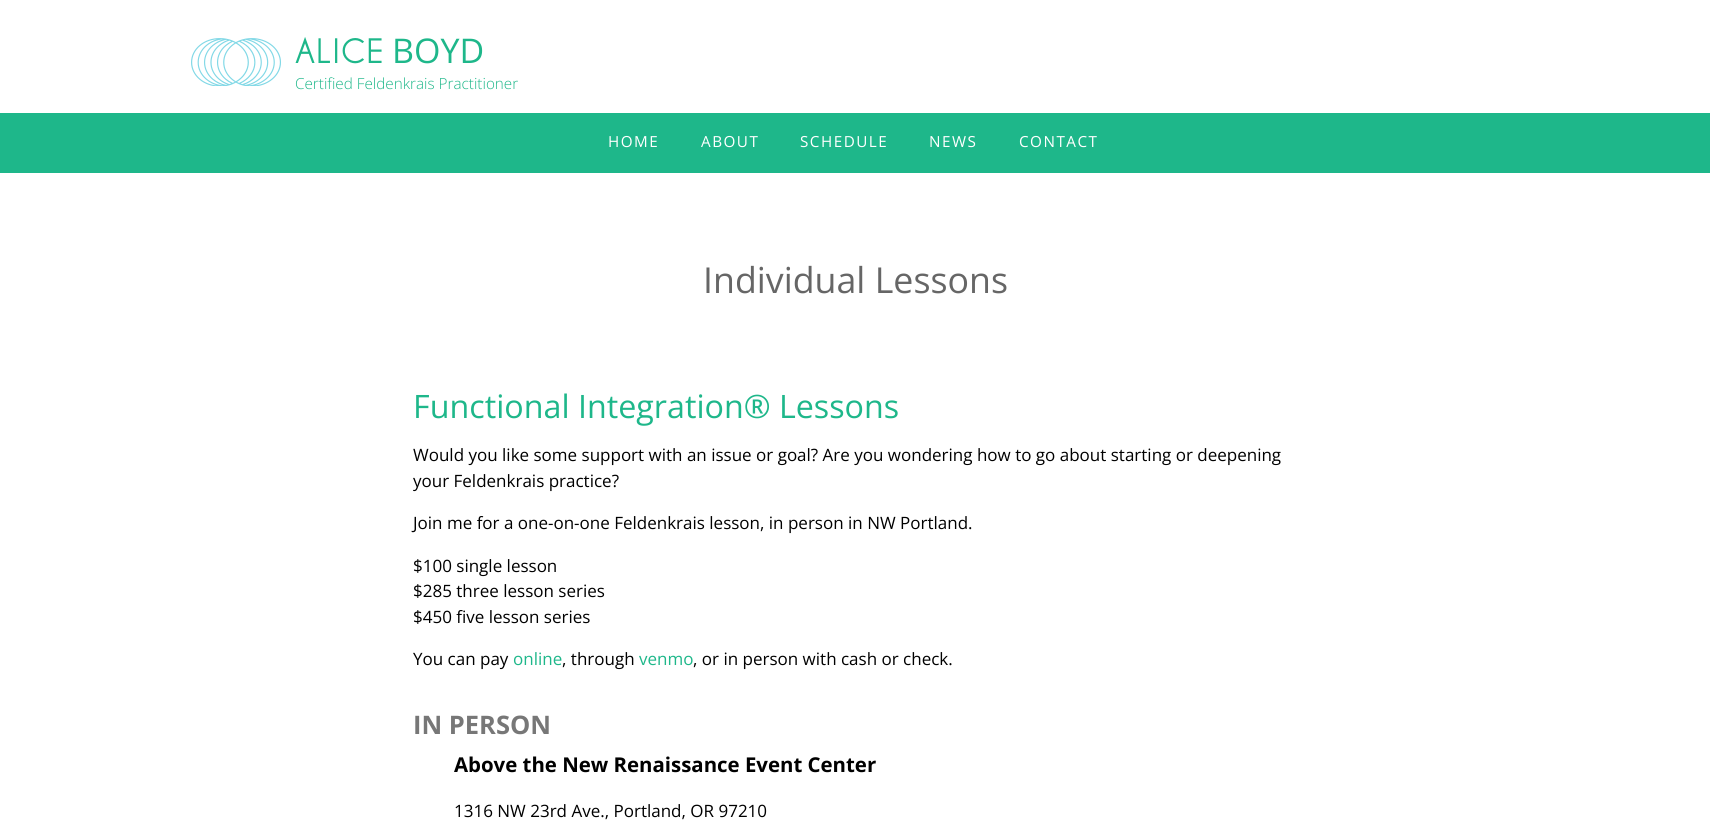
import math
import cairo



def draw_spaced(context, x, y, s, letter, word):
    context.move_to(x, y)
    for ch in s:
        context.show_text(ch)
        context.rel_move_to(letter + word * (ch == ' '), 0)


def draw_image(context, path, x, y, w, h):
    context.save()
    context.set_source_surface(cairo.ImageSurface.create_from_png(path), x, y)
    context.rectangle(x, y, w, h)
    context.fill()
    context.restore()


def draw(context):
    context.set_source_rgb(1, 1, 1)
    context.paint()
    draw_image(context, "images/1.png", 191, 38, 90, 48)
    context.set_source_rgb(30 / 255, 183 / 255, 138 / 255)
    context.rectangle(0, 113, 1710, 60)
    context.fill()
    context.select_font_face("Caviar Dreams", cairo.FontSlant.NORMAL, cairo.FontWeight.BOLD)
    context.set_font_size(30.5)
    draw_spaced(context, 295, 63, "ALICE", 2, 0)
    context.select_font_face("Open Sans")
    context.set_font_size(34)
    context.move_to(392, 63)
    context.show_text("BOYD")
    context.select_font_face("Open Sans Light")
    context.set_font_size(15.25)
    context.move_to(295, 89)
    context.show_text("Certified Feldenkrais Practitioner")
    context.select_font_face("Open Sans")
    context.set_source_rgb(1, 1, 1)
    draw_spaced(context, 608, 147, "HOME", 1.5, 0)
    draw_spaced(context, 701, 147, "ABOUT", 1.5, 0)
    draw_spaced(context, 800, 147, "SCHEDULE", 1.5, 0)
    draw_spaced(context, 929, 147, "NEWS", 1.5, 0)
    draw_spaced(context, 1019, 147, "CONTACT", 1.5, 0)
    context.set_font_size(35.75)
    context.set_source_rgb(102 / 255, 102 / 255, 102 / 255)
    context.move_to(703, 293)
    context.show_text("Individual Lessons")
    context.set_font_size(32.25)
    context.set_source_rgb(30 / 255, 183 / 255, 138 / 255)
    context.move_to(413, 418)
    context.show_text("Functional Integration® Lessons")
    context.set_font_size(17)
    context.set_source_rgb(0, 0, 0)
    context.move_to(413, 461)
    context.show_text("Would you like some support with an issue or goal? Are you wondering how to go about starting or deepening")
    context.move_to(413, 487)
    context.show_text("your Feldenkrais practice?")
    context.move_to(413, 529)
    context.show_text("Join me for a one-on-one Feldenkrais lesson, in person in NW Portland.")
    context.move_to(413, 572)
    context.show_text("$100 single lesson")
    context.move_to(413, 597)
    context.show_text("$285 three lesson series")
    context.move_to(413, 623)
    context.show_text("$450 five lesson series")
    context.move_to(413, 665)
    context.show_text("You can pay")
    context.set_source_rgb(30 / 255, 183 / 255, 138 / 255)
    context.move_to(513, 665)
    context.show_text("online")
    context.set_source_rgb(0, 0, 0)
    context.move_to(562, 665)
    context.show_text(", through")
    context.set_source_rgb(30 / 255, 183 / 255, 138 / 255)
    context.move_to(639, 665)
    context.show_text("venmo")
    context.set_source_rgb(0, 0, 0)
    context.move_to(693, 665)
    context.show_text(", or in person with cash or check.")
    context.select_font_face("Open Sans", cairo.FontSlant.NORMAL, cairo.FontWeight.BOLD)
    context.set_font_size(25.5)
    context.set_source_rgb(119 / 255, 119 / 255, 119 / 255)
    context.move_to(413, 734)
    context.show_text("IN PERSON")
    context.set_font_size(20.4)
    context.set_source_rgb(0, 0, 0)
    context.move_to(454, 772)
    context.show_text("Above the New Renaissance Event Center")
    context.select_font_face("Open Sans")
    context.set_font_size(17)
    context.move_to(454, 817)
    context.show_text("1316 NW 23rd Ave., Portland, OR 97210")


surface = cairo.ImageSurface(cairo.Format.RGB24, 1710, 825)
context = cairo.Context(surface)
options = cairo.FontOptions()
options.set_hint_metrics(cairo.HintMetrics.OFF)
options.set_hint_style(cairo.HintStyle.NONE)
context.set_font_options(options)
context.set_miter_limit(4)
draw(context)
surface.write_to_png("out.png")
